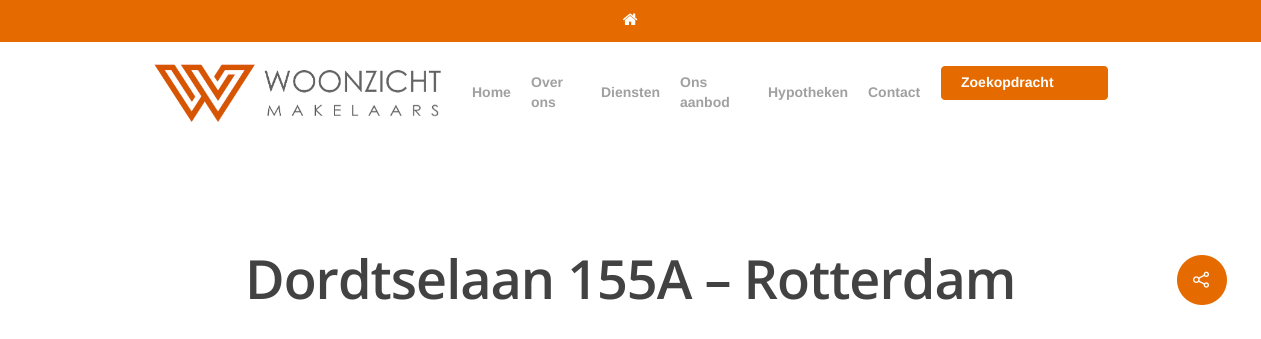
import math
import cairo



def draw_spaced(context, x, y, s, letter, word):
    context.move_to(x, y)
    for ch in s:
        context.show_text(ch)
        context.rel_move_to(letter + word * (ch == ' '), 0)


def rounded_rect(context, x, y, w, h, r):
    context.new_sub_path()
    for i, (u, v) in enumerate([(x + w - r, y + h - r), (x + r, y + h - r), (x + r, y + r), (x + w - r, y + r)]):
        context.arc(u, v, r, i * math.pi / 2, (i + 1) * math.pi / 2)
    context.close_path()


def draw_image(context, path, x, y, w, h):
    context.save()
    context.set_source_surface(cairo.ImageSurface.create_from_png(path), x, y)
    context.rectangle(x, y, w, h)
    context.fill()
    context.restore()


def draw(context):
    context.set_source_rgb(1, 1, 1)
    context.paint()
    context.set_source_rgb(229 / 255, 107 / 255, 0)
    context.rectangle(0, 0, 1261, 42)
    context.fill()
    draw_image(context, "images/1.png", 622, 13, 16, 12)
    draw_image(context, "images/2.png", 154, 64, 287, 58)
    rounded_rect(context, 941, 66, 167, 34, 4)
    context.fill()
    context.arc(1202, 280, 25, 0, 2 * math.pi)
    context.fill()
    draw_image(context, "images/3.png", 1193, 271, 16, 17)
    context.select_font_face("Liberation Sans", cairo.FontSlant.NORMAL, cairo.FontWeight.BOLD)
    context.set_font_size(14)
    context.set_source_rgb(160 / 255, 160 / 255, 160 / 255)
    context.move_to(472, 97)
    context.show_text("Home")
    context.move_to(531, 87)
    context.show_text("Over")
    context.move_to(531, 107)
    context.show_text("ons")
    context.move_to(601, 97)
    context.show_text("Diensten")
    context.move_to(680, 87)
    context.show_text("Ons")
    context.move_to(680, 107)
    context.show_text("aanbod")
    context.move_to(768, 97)
    context.show_text("Hypotheken")
    context.move_to(868, 97)
    context.show_text("Contact")
    context.set_source_rgb(1, 1, 1)
    context.move_to(961, 87)
    context.show_text("Zoekopdracht")
    context.select_font_face("Open Sans SemiBold")
    context.set_font_size(54)
    context.set_source_rgb(66 / 255, 66 / 255, 66 / 255)
    draw_spaced(context, 245, 299, "Dordtselaan 155A – Rotterdam", -1, 0)


surface = cairo.ImageSurface(cairo.Format.RGB24, 1261, 339)
context = cairo.Context(surface)
options = cairo.FontOptions()
options.set_hint_metrics(cairo.HintMetrics.OFF)
options.set_hint_style(cairo.HintStyle.NONE)
context.set_font_options(options)
context.set_miter_limit(4)
draw(context)
surface.write_to_png("out.png")
